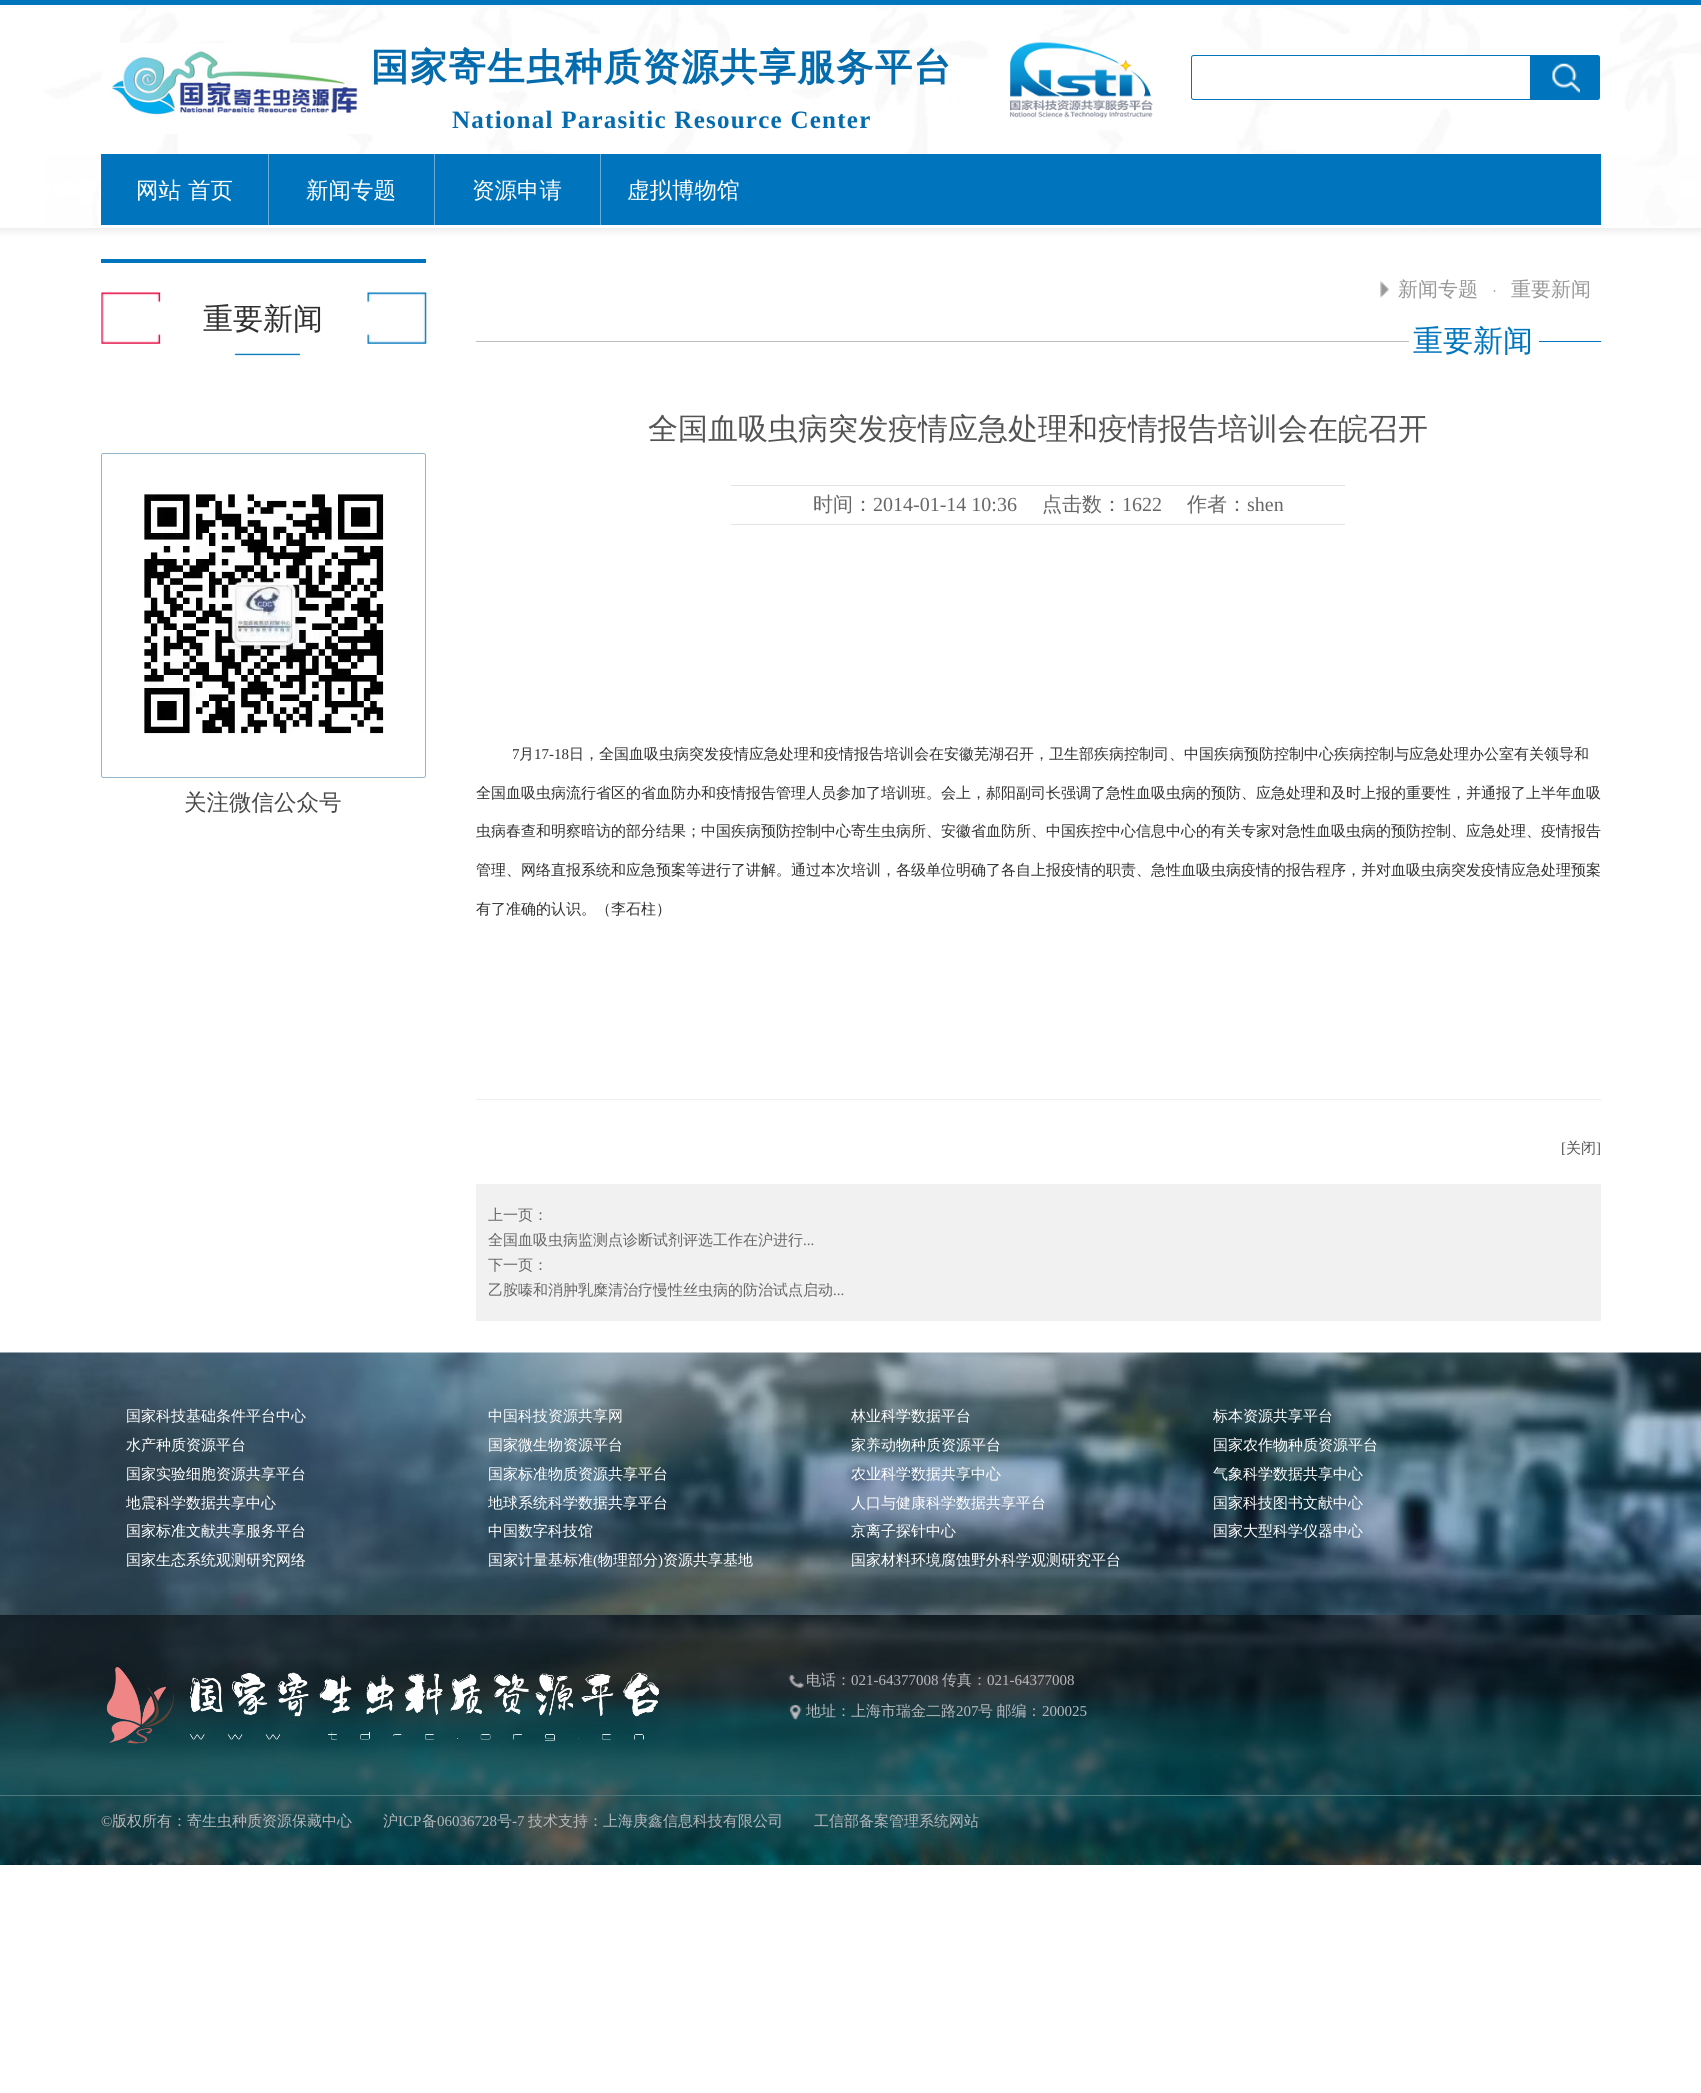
import math
import cairo



def draw_spaced(context, x, y, s, letter, word):
    context.move_to(x, y)
    for ch in s:
        context.show_text(ch)
        context.rel_move_to(letter + word * (ch == ' '), 0)


def rounded_rect(context, x, y, w, h, r):
    context.new_sub_path()
    for i, (u, v) in enumerate([(x + w - r, y + h - r), (x + r, y + h - r), (x + r, y + r), (x + w - r, y + r)]):
        context.arc(u, v, r, i * math.pi / 2, (i + 1) * math.pi / 2)
    context.close_path()


def draw_shadow(context, x, y, w, h, r, blur, alpha):
    context.push_group_with_content(cairo.Content.ALPHA)
    context.set_operator(cairo.Operator.SOURCE)
    for i in range(15, -16, -2):
        e = blur * i / 6
        if min(w, h) + 2 * e > 0:
            context.set_source_rgba(0, 0, 0, alpha * math.erfc((i - 1) / 8.5) / 2)
            rounded_rect(context, x - e, y - e, w + 2 * e, h + 2 * e, max(0, min(r + e + blur * .6, min(w, h) / 2 + e)))
            context.fill()
    context.mask(context.pop_group())


def draw_image(context, path, x, y, w, h):
    context.save()
    context.set_source_surface(cairo.ImageSurface.create_from_png(path), x, y)
    context.rectangle(x, y, w, h)
    context.fill()
    context.restore()


def draw(context):
    context.set_source_rgb(1, 1, 1)
    context.paint()
    context.save()
    context.set_fill_rule(cairo.FillRule.EVEN_ODD)
    context.new_path()
    context.move_to(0, 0)
    context.line_to(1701, 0)
    context.line_to(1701, 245)
    context.line_to(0, 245)
    context.close_path()
    context.move_to(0, 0)
    context.line_to(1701, 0)
    context.line_to(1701, 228)
    context.line_to(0, 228)
    context.close_path()
    context.clip()
    context.set_source_rgb(230 / 255, 230 / 255, 230 / 255)
    draw_shadow(context, 0, 3, 1701, 227, 0, 4.5, 1)
    context.restore()
    draw_image(context, "images/1.png", 44, 5, 1657, 221)
    context.set_source_rgb(0, 117 / 255, 189 / 255)
    context.rectangle(0, 0, 1701, 5)
    context.fill()
    draw_image(context, "images/2.png", 101, 43, 270, 91)
    draw_image(context, "images/3.png", 1010, 42, 143, 76)
    context.set_source_rgb(1, 1, 1)
    context.new_path()
    context.move_to(1193.5, 55.5)
    context.line_to(1530.5, 55.5)
    context.line_to(1530.5, 99.5)
    context.line_to(1193.5, 99.5)
    context.curve_to(1192.5, 99.5, 1191.5, 98.5, 1191.5, 97.5)
    context.line_to(1191.5, 57.5)
    context.curve_to(1191.5, 56.5, 1192.5, 55.5, 1193.5, 55.5)
    context.close_path()
    context.fill_preserve()
    context.set_source_rgb(0, 117 / 255, 189 / 255)
    context.set_line_width(1)
    context.stroke()
    context.new_path()
    context.move_to(1531, 55)
    context.line_to(1597.5, 55)
    context.curve_to(1599, 55, 1600, 56, 1600, 57.5)
    context.line_to(1600, 97.5)
    context.curve_to(1600, 99, 1599, 100, 1597.5, 100)
    context.line_to(1531, 100)
    context.close_path()
    context.fill()
    draw_image(context, "images/4.png", 1552, 63, 28, 30)
    context.rectangle(101, 154, 1500, 71)
    context.fill()
    context.set_source_rgb(105 / 255, 174 / 255, 216 / 255)
    context.rectangle(268, 154, 1, 71)
    context.fill()
    context.rectangle(434, 154, 1, 71)
    context.fill()
    context.rectangle(600, 154, 1, 71)
    context.fill()
    context.set_source_rgb(0, 117 / 255, 189 / 255)
    context.rectangle(101, 259, 325, 4)
    context.fill()
    draw_image(context, "images/5.png", 101, 292, 326, 64)
    rounded_rect(context, 101.5, 453.5, 324, 324, 2)
    context.set_source_rgb(147 / 255, 181 / 255, 202 / 255)
    context.stroke()
    draw_image(context, "images/6.png", 144, 494, 240, 240)
    draw_image(context, "images/7.png", 1380, 281, 9, 17)
    context.set_source_rgb(190 / 255, 190 / 255, 190 / 255)
    context.rectangle(476, 341, 933, 1)
    context.fill()
    context.set_source_rgb(0, 117 / 255, 189 / 255)
    context.rectangle(1539, 341, 62, 1)
    context.fill()
    context.set_source_rgb(227 / 255, 227 / 255, 227 / 255)
    context.rectangle(731, 485, 614, 1)
    context.fill()
    context.rectangle(731, 524, 614, 1)
    context.fill()
    context.set_source_rgb(238 / 255, 238 / 255, 238 / 255)
    context.rectangle(476, 1099, 1125, 1)
    context.fill()
    context.set_source_rgb(241 / 255, 241 / 255, 241 / 255)
    context.rectangle(476, 1184, 1125, 137)
    context.fill()
    draw_image(context, "images/8.png", 0, 1352, 1701, 263)
    draw_image(context, "images/9.png", 0, 1615, 1701, 250)
    draw_image(context, "images/10.png", 106, 1667, 553, 77)
    draw_image(context, "images/11.png", 788, 1675, 16, 13)
    draw_image(context, "images/12.png", 789, 1705, 13, 15)
    context.set_source_rgb(76 / 255, 119 / 255, 124 / 255)
    context.rectangle(0, 1795, 1701, 1)
    context.fill()
    context.select_font_face("WenQuanYi Zen Hei", cairo.FontSlant.NORMAL, cairo.FontWeight.BOLD)
    context.set_font_size(37.5)
    context.set_source_rgb(4 / 255, 107 / 255, 173 / 255)
    draw_spaced(context, 371, 80, "国家寄生虫种质资源共享服务平台", 1.25, 0)
    context.select_font_face("Liberation Serif", cairo.FontSlant.NORMAL, cairo.FontWeight.BOLD)
    context.set_font_size(25)
    draw_spaced(context, 452, 128, "National Parasitic Resource Center", 1.25, 0)
    context.select_font_face("WenQuanYi Zen Hei Medium")
    context.set_font_size(22.5)
    context.set_source_rgb(1, 1, 1)
    context.move_to(136, 198)
    context.show_text("网站")
    context.move_to(188, 198)
    context.show_text("首页")
    context.move_to(306, 198)
    context.show_text("新闻专题")
    context.move_to(472, 198)
    context.show_text("资源申请")
    context.move_to(627, 198)
    context.show_text("虚拟博物馆")
    context.set_font_size(30)
    context.set_source_rgb(48 / 255, 48 / 255, 48 / 255)
    context.move_to(203, 329)
    context.show_text("重要新闻")
    context.set_font_size(22.5)
    context.set_source_rgb(72 / 255, 72 / 255, 72 / 255)
    context.move_to(184, 810)
    context.show_text("关注微信公众号")
    context.set_font_size(20)
    context.set_source_rgb(152 / 255, 152 / 255, 152 / 255)
    context.move_to(1398, 296)
    context.show_text("新闻专题")
    context.select_font_face("Liberation Serif")
    context.set_font_size(15)
    context.move_to(1492, 296)
    context.show_text("·")
    context.select_font_face("WenQuanYi Zen Hei Medium")
    context.set_font_size(20)
    context.move_to(1511, 296)
    context.show_text("重要新闻")
    context.set_font_size(30)
    context.set_source_rgb(0, 117 / 255, 189 / 255)
    context.move_to(1413, 351)
    context.show_text("重要新闻")
    context.set_source_rgb(84 / 255, 84 / 255, 84 / 255)
    context.move_to(648, 439)
    context.show_text("全国血吸虫病突发疫情应急处理和疫情报告培训会在皖召开")
    context.set_font_size(20)
    context.set_source_rgb(102 / 255, 102 / 255, 102 / 255)
    context.move_to(813, 511)
    context.show_text("时间：")
    context.select_font_face("Liberation Serif")
    context.move_to(873, 511)
    context.show_text("2014-01-14 10:36")
    context.select_font_face("WenQuanYi Zen Hei Medium")
    context.move_to(1042, 511)
    context.show_text("点击数：")
    context.select_font_face("Liberation Serif")
    context.move_to(1122, 511)
    context.show_text("1622")
    context.select_font_face("WenQuanYi Zen Hei Medium")
    context.move_to(1187, 511)
    context.show_text("作者：")
    context.select_font_face("Liberation Serif")
    context.move_to(1247, 511)
    context.show_text("shen")
    context.set_font_size(15)
    context.set_source_rgb(48 / 255, 48 / 255, 48 / 255)
    context.move_to(512, 759)
    context.show_text("7")
    context.select_font_face("WenQuanYi Zen Hei Medium")
    context.move_to(519, 759)
    context.show_text("月")
    context.select_font_face("Liberation Serif")
    context.move_to(534, 759)
    context.show_text("17-18")
    context.select_font_face("WenQuanYi Zen Hei Medium")
    context.move_to(569, 759)
    context.show_text("日，全国血吸虫病突发疫情应急处理和疫情报告培训会在安徽芜湖召开，卫生部疾病控制司、中国疾病预防控制中心疾病控制与应急处理办公室有关领导和")
    context.move_to(476, 798)
    context.show_text("全国血吸虫病流行省区的省血防办和疫情报告管理人员参加了培训班。会上，郝阳副司长强调了急性血吸虫病的预防、应急处理和及时上报的重要性，并通报了上半年血吸")
    context.move_to(476, 836)
    context.show_text("虫病春查和明察暗访的部分结果；中国疾病预防控制中心寄生虫病所、安徽省血防所、中国疾控中心信息中心的有关专家对急性血吸虫病的预防控制、应急处理、疫情报告")
    context.move_to(476, 875)
    context.show_text("管理、网络直报系统和应急预案等进行了讲解。通过本次培训，各级单位明确了各自上报疫情的职责、急性血吸虫病疫情的报告程序，并对血吸虫病突发疫情应急处理预案")
    context.move_to(476, 914)
    context.show_text("有了准确的认识。（李石柱）")
    context.select_font_face("Liberation Serif")
    context.set_source_rgb(84 / 255, 84 / 255, 84 / 255)
    context.move_to(1561, 1153)
    context.show_text("[")
    context.select_font_face("WenQuanYi Zen Hei Medium")
    context.move_to(1566, 1153)
    context.show_text("关闭")
    context.select_font_face("Liberation Serif")
    context.move_to(1596, 1153)
    context.show_text("]")
    context.select_font_face("WenQuanYi Zen Hei Medium")
    context.set_source_rgb(102 / 255, 102 / 255, 102 / 255)
    context.move_to(488, 1220)
    context.show_text("上一页：")
    context.move_to(488, 1245)
    context.show_text("全国血吸虫病监测点诊断试剂评选工作在沪进行")
    context.select_font_face("Liberation Serif")
    context.move_to(803, 1245)
    context.show_text("...")
    context.select_font_face("WenQuanYi Zen Hei Medium")
    context.move_to(488, 1270)
    context.show_text("下一页：")
    context.move_to(488, 1295)
    context.show_text("乙胺嗪和消肿乳糜清治疗慢性丝虫病的防治试点启动")
    context.select_font_face("Liberation Serif")
    context.move_to(833, 1295)
    context.show_text("...")
    context.select_font_face("WenQuanYi Zen Hei Medium")
    context.set_source_rgb(1, 1, 1)
    context.move_to(126, 1421)
    context.show_text("国家科技基础条件平台中心")
    context.move_to(488, 1421)
    context.show_text("中国科技资源共享网")
    context.move_to(851, 1421)
    context.show_text("林业科学数据平台")
    context.move_to(1213, 1421)
    context.show_text("标本资源共享平台")
    context.move_to(126, 1450)
    context.show_text("水产种质资源平台")
    context.move_to(488, 1450)
    context.show_text("国家微生物资源平台")
    context.move_to(851, 1450)
    context.show_text("家养动物种质资源平台")
    context.move_to(1213, 1450)
    context.show_text("国家农作物种质资源平台")
    context.move_to(126, 1479)
    context.show_text("国家实验细胞资源共享平台")
    context.move_to(488, 1479)
    context.show_text("国家标准物质资源共享平台")
    context.move_to(851, 1479)
    context.show_text("农业科学数据共享中心")
    context.move_to(1213, 1479)
    context.show_text("气象科学数据共享中心")
    context.move_to(126, 1508)
    context.show_text("地震科学数据共享中心")
    context.move_to(488, 1508)
    context.show_text("地球系统科学数据共享平台")
    context.move_to(851, 1508)
    context.show_text("人口与健康科学数据共享平台")
    context.move_to(1213, 1508)
    context.show_text("国家科技图书文献中心")
    context.move_to(126, 1536)
    context.show_text("国家标准文献共享服务平台")
    context.move_to(488, 1536)
    context.show_text("中国数字科技馆")
    context.move_to(851, 1536)
    context.show_text("京离子探针中心")
    context.move_to(1213, 1536)
    context.show_text("国家大型科学仪器中心")
    context.move_to(126, 1565)
    context.show_text("国家生态系统观测研究网络")
    context.move_to(488, 1565)
    context.show_text("国家计量基标准")
    context.select_font_face("Liberation Serif")
    context.move_to(593, 1565)
    context.show_text("(")
    context.select_font_face("WenQuanYi Zen Hei Medium")
    context.move_to(598, 1565)
    context.show_text("物理部分")
    context.select_font_face("Liberation Serif")
    context.move_to(658, 1565)
    context.show_text(")")
    context.select_font_face("WenQuanYi Zen Hei Medium")
    context.move_to(663, 1565)
    context.show_text("资源共享基地")
    context.move_to(851, 1565)
    context.show_text("国家材料环境腐蚀野外科学观测研究平台")
    context.set_source_rgb(184 / 255, 184 / 255, 187 / 255)
    context.move_to(806, 1685)
    context.show_text("电话：")
    context.select_font_face("Liberation Serif")
    context.move_to(851, 1685)
    context.show_text("021-64377008")
    context.select_font_face("WenQuanYi Zen Hei Medium")
    context.move_to(942, 1685)
    context.show_text("传真：")
    context.select_font_face("Liberation Serif")
    context.move_to(987, 1685)
    context.show_text("021-64377008")
    context.select_font_face("WenQuanYi Zen Hei Medium")
    context.move_to(806, 1716)
    context.show_text("地址：上海市瑞金二路")
    context.select_font_face("Liberation Serif")
    context.move_to(956, 1716)
    context.show_text("207")
    context.select_font_face("WenQuanYi Zen Hei Medium")
    draw_spaced(context, 978, 1716, "号 邮编：", 0, -1)
    context.select_font_face("Liberation Serif")
    context.move_to(1042, 1716)
    context.show_text("200025")
    context.move_to(101, 1826)
    context.show_text("©")
    context.select_font_face("WenQuanYi Zen Hei Medium")
    context.move_to(112, 1826)
    context.show_text("版权所有：寄生虫种质资源保藏中心")
    context.move_to(383, 1826)
    context.show_text("沪")
    context.select_font_face("Liberation Serif")
    context.move_to(398, 1826)
    context.show_text("ICP")
    context.select_font_face("WenQuanYi Zen Hei Medium")
    context.move_to(422, 1826)
    context.show_text("备")
    context.select_font_face("Liberation Serif")
    context.move_to(437, 1826)
    context.show_text("06036728")
    context.select_font_face("WenQuanYi Zen Hei Medium")
    context.move_to(497, 1826)
    context.show_text("号")
    context.select_font_face("Liberation Serif")
    context.move_to(512, 1826)
    context.show_text("-7")
    context.select_font_face("WenQuanYi Zen Hei Medium")
    context.move_to(528, 1826)
    context.show_text("技术支持：上海庚鑫信息科技有限公司")
    context.move_to(814, 1826)
    context.show_text("工信部备案管理系统网站")


surface = cairo.ImageSurface(cairo.Format.RGB24, 1701, 2093)
context = cairo.Context(surface)
options = cairo.FontOptions()
options.set_hint_metrics(cairo.HintMetrics.OFF)
options.set_hint_style(cairo.HintStyle.NONE)
context.set_font_options(options)
context.set_miter_limit(4)
draw(context)
surface.write_to_png("out.png")
